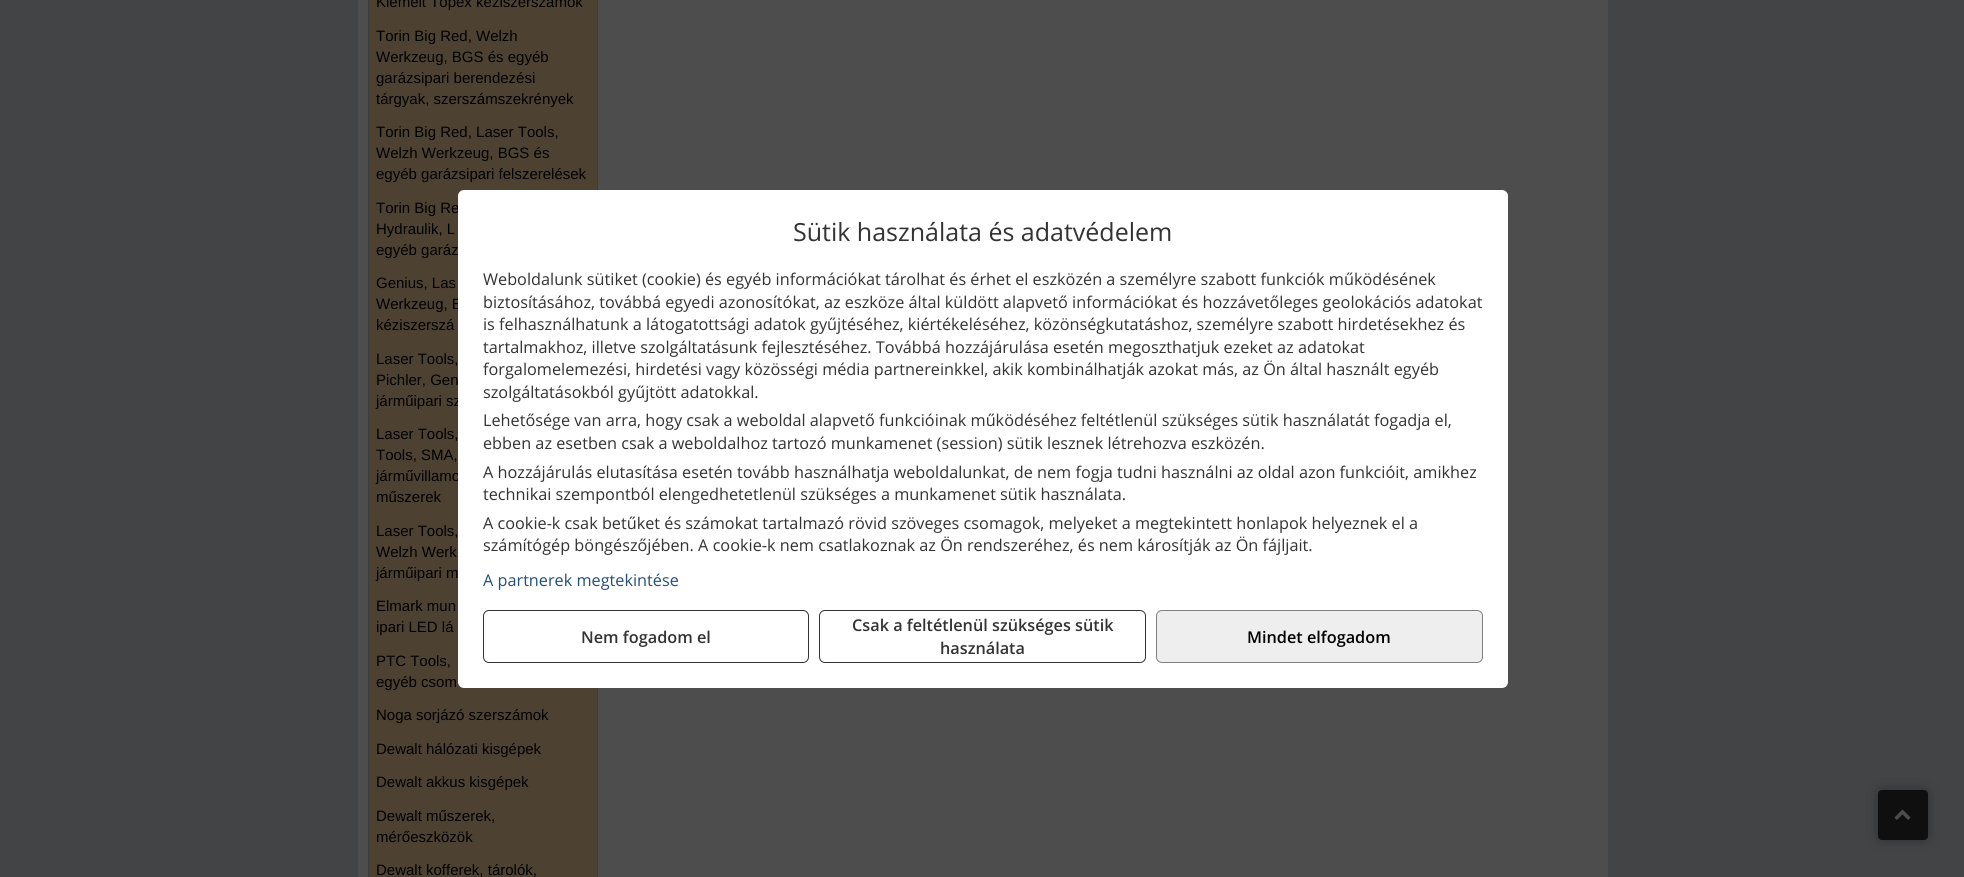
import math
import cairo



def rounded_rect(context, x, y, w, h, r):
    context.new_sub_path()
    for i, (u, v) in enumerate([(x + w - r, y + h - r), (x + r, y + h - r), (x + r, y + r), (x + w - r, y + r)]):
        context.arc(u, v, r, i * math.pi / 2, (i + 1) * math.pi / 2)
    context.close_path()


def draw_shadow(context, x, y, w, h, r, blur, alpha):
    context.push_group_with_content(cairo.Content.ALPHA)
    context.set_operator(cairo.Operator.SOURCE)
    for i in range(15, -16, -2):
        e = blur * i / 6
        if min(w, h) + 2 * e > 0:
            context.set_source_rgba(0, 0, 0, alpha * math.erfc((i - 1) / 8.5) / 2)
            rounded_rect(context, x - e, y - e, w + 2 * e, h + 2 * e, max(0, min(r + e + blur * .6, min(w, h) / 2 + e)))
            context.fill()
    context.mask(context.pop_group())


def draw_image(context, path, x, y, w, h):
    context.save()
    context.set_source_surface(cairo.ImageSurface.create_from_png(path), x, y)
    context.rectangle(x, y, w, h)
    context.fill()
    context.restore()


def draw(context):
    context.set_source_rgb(66 / 255, 68 / 255, 70 / 255)
    context.paint()
    context.set_source_rgb(77 / 255, 77 / 255, 77 / 255)
    context.rectangle(358, 0, 1250, 877)
    context.fill()
    context.set_source_rgb(77 / 255, 66 / 255, 50 / 255)
    context.rectangle(368.5, -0.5, 229, 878)
    context.fill_preserve()
    context.set_source_rgb(61 / 255, 61 / 255, 61 / 255)
    context.set_line_width(1)
    context.stroke()
    context.set_source_rgb(15 / 255, 15 / 255, 15 / 255)
    draw_shadow(context, 1878, 790, 50, 50, 4, 6, 0.4)
    context.set_source_rgb(15 / 255, 15 / 255, 15 / 255)
    rounded_rect(context, 1878, 790, 50, 50, 4)
    context.fill()
    draw_image(context, "images/1.png", 1894, 809, 17, 11)
    context.select_font_face("Liberation Sans")
    context.set_font_size(15)
    context.set_source_rgb(0, 0, 0)
    context.move_to(376, 7)
    context.show_text("Kiemelt Topex kéziszerszámok")
    context.move_to(376, 41)
    context.show_text("Torin Big Red, Welzh")
    context.move_to(376, 62)
    context.show_text("Werkzeug, BGS és egyéb")
    context.move_to(376, 83)
    context.show_text("garázsipari berendezési")
    context.move_to(376, 104)
    context.show_text("tárgyak, szerszámszekrények")
    context.move_to(376, 137)
    context.show_text("Torin Big Red, Laser Tools,")
    context.move_to(376, 158)
    context.show_text("Welzh Werkzeug, BGS és")
    context.move_to(376, 179)
    context.show_text("egyéb garázsipari felszerelések")
    context.move_to(376, 213)
    context.show_text("Torin Big Re")
    context.move_to(376, 234)
    context.show_text("Hydraulik, L")
    context.move_to(376, 255)
    context.show_text("egyéb garáz")
    context.move_to(376, 288)
    context.show_text("Genius, Las")
    context.move_to(376, 309)
    context.show_text("Werkzeug, B")
    context.move_to(376, 330)
    context.show_text("kéziszerszá")
    context.move_to(376, 364)
    context.show_text("Laser Tools,")
    context.move_to(376, 385)
    context.show_text("Pichler, Gen")
    context.move_to(376, 406)
    context.show_text("járműipari sz")
    context.move_to(376, 439)
    context.show_text("Laser Tools,")
    context.move_to(376, 460)
    context.show_text("Tools, SMA,")
    context.move_to(376, 481)
    context.show_text("járművillamo")
    context.move_to(376, 502)
    context.show_text("műszerek")
    context.move_to(376, 536)
    context.show_text("Laser Tools,")
    context.move_to(376, 557)
    context.show_text("Welzh Werk")
    context.move_to(376, 578)
    context.show_text("járműipari m")
    context.move_to(376, 611)
    context.show_text("Elmark mun")
    context.move_to(376, 632)
    context.show_text("ipari LED lá")
    context.move_to(376, 666)
    context.show_text("PTC Tools,")
    context.move_to(376, 687)
    context.show_text("egyéb csom")
    context.move_to(376, 720)
    context.show_text("Noga sorjázó szerszámok")
    context.move_to(376, 754)
    context.show_text("Dewalt hálózati kisgépek")
    context.move_to(376, 787)
    context.show_text("Dewalt akkus kisgépek")
    context.move_to(376, 821)
    context.show_text("Dewalt műszerek,")
    context.move_to(376, 842)
    context.show_text("mérőeszközök")
    context.move_to(376, 875)
    context.show_text("Dewalt kofferek, tárolók,")
    context.set_source_rgb(1, 1, 1)
    rounded_rect(context, 458, 190, 1050, 498, 6)
    context.fill()
    context.select_font_face("Open Sans")
    context.set_font_size(25)
    context.set_source_rgb(51 / 255, 51 / 255, 51 / 255)
    context.move_to(793, 241)
    context.show_text("Sütik használata és adatvédelem")
    context.set_font_size(16.25)
    context.move_to(483, 285)
    context.show_text("Weboldalunk sütiket (cookie) és egyéb információkat tárolhat és érhet el eszközén a személyre szabott funkciók működésének")
    context.move_to(483, 308)
    context.show_text("biztosításához, továbbá egyedi azonosítókat, az eszköze által küldött alapvető információkat és hozzávetőleges geolokációs adatokat")
    context.move_to(483, 330)
    context.show_text("is felhasználhatunk a látogatottsági adatok gyűjtéséhez, kiértékeléséhez, közönségkutatáshoz, személyre szabott hirdetésekhez és")
    context.move_to(483, 353)
    context.show_text("tartalmakhoz, illetve szolgáltatásunk fejlesztéséhez. Továbbá hozzájárulása esetén megoszthatjuk ezeket az adatokat")
    context.move_to(483, 375)
    context.show_text("forgalomelemezési, hirdetési vagy közösségi média partnereinkkel, akik kombinálhatják azokat más, az Ön által használt egyéb")
    context.move_to(483, 398)
    context.show_text("szolgáltatásokból gyűjtött adatokkal.")
    context.move_to(483, 426)
    context.show_text("Lehetősége van arra, hogy csak a weboldal alapvető funkcióinak működéséhez feltétlenül szükséges sütik használatát fogadja el,")
    context.move_to(483, 449)
    context.show_text("ebben az esetben csak a weboldalhoz tartozó munkamenet (session) sütik lesznek létrehozva eszközén.")
    context.move_to(483, 478)
    context.show_text("A hozzájárulás elutasítása esetén tovább használhatja weboldalunkat, de nem fogja tudni használni az oldal azon funkcióit, amikhez")
    context.move_to(483, 500)
    context.show_text("technikai szempontból elengedhetetlenül szükséges a munkamenet sütik használata.")
    context.move_to(483, 529)
    context.show_text("A cookie-k csak betűket és számokat tartalmazó rövid szöveges csomagok, melyeket a megtekintett honlapok helyeznek el a")
    context.move_to(483, 551)
    context.show_text("számítógép böngészőjében. A cookie-k nem csatlakoznak az Ön rendszeréhez, és nem károsítják az Ön fájljait.")
    context.set_source_rgb(36 / 255, 80 / 255, 118 / 255)
    context.move_to(483, 586)
    context.show_text("A partnerek megtekintése")
    rounded_rect(context, 483.5, 610.5, 325, 52, 5.5)
    context.set_source_rgb(51 / 255, 51 / 255, 51 / 255)
    context.stroke()
    context.select_font_face("Open Sans SemiBold")
    context.move_to(581, 643)
    context.show_text("Nem fogadom el")
    rounded_rect(context, 819.5, 610.5, 326, 52, 5.5)
    context.stroke()
    context.move_to(852, 631)
    context.show_text("Csak a feltétlenül szükséges sütik")
    context.move_to(940, 654)
    context.show_text("használata")
    context.set_source_rgb(238 / 255, 238 / 255, 238 / 255)
    rounded_rect(context, 1156.5, 610.5, 326, 52, 5.5)
    context.fill_preserve()
    context.set_source_rgb(128 / 255, 128 / 255, 128 / 255)
    context.stroke()
    context.set_source_rgb(0, 0, 0)
    context.move_to(1247, 643)
    context.show_text("Mindet elfogadom")


surface = cairo.ImageSurface(cairo.Format.RGB24, 1964, 877)
context = cairo.Context(surface)
options = cairo.FontOptions()
options.set_hint_metrics(cairo.HintMetrics.OFF)
options.set_hint_style(cairo.HintStyle.NONE)
context.set_font_options(options)
context.set_miter_limit(4)
draw(context)
surface.write_to_png("out.png")
